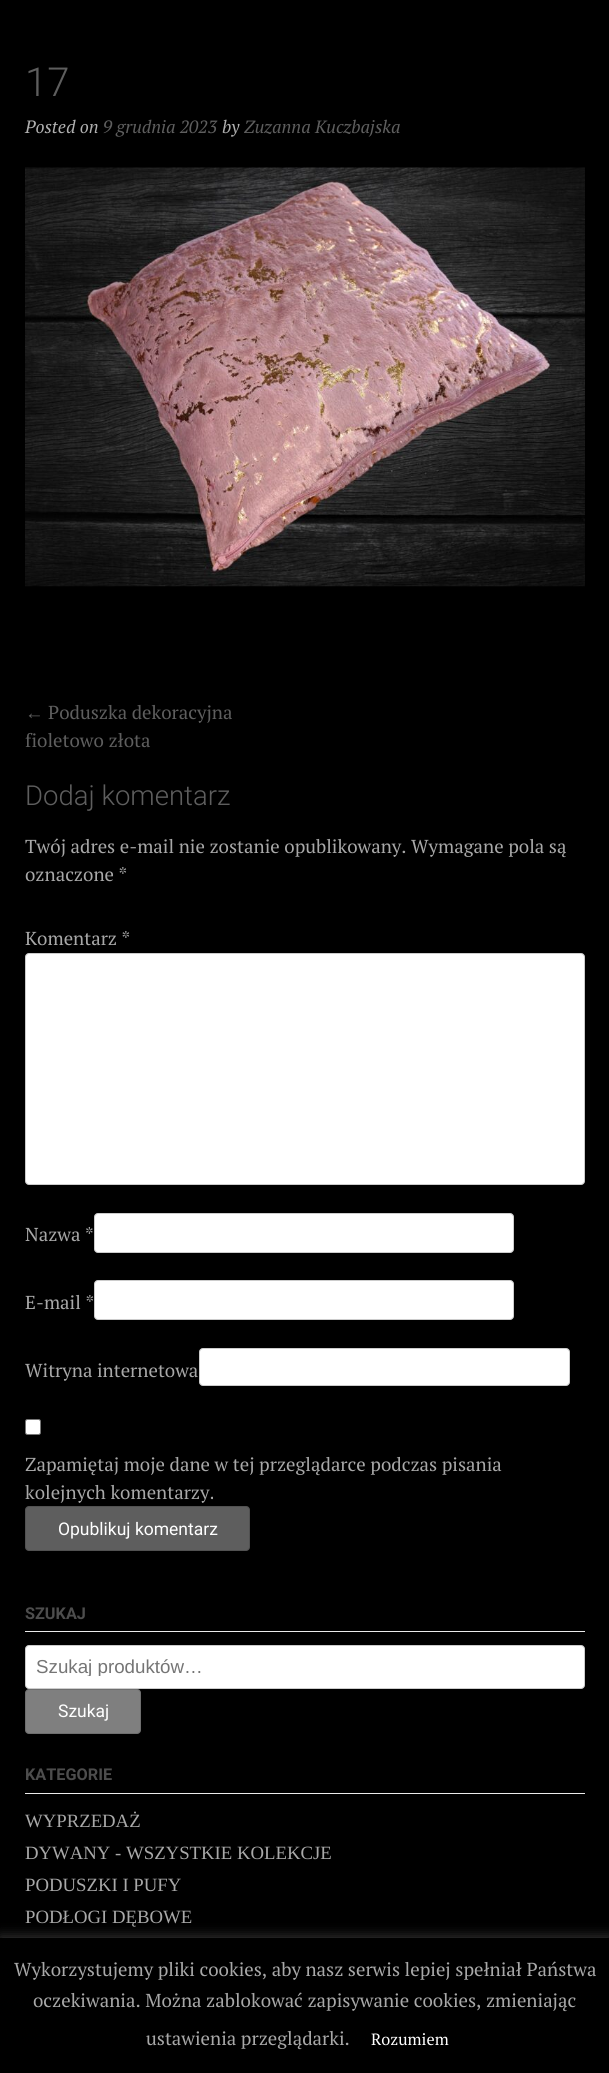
import math
import cairo



def rounded_rect(context, x, y, w, h, r):
    context.new_sub_path()
    for i, (u, v) in enumerate([(x + w - r, y + h - r), (x + r, y + h - r), (x + r, y + r), (x + w - r, y + r)]):
        context.arc(u, v, r, i * math.pi / 2, (i + 1) * math.pi / 2)
    context.close_path()


def draw_shadow(context, x, y, w, h, r, blur, alpha):
    context.push_group_with_content(cairo.Content.ALPHA)
    context.set_operator(cairo.Operator.SOURCE)
    for i in range(15, -16, -2):
        e = blur * i / 6
        if min(w, h) + 2 * e > 0:
            context.set_source_rgba(0, 0, 0, alpha * math.erfc((i - 1) / 8.5) / 2)
            rounded_rect(context, x - e, y - e, w + 2 * e, h + 2 * e, max(0, min(r + e + blur * .6, min(w, h) / 2 + e)))
            context.fill()
    context.mask(context.pop_group())


def draw_image(context, path, x, y, w, h):
    context.save()
    context.set_source_surface(cairo.ImageSurface.create_from_png(path), x, y)
    context.rectangle(x, y, w, h)
    context.fill()
    context.restore()


def draw(context):
    context.set_source_rgb(0, 0, 0)
    context.paint()
    draw_image(context, "images/1.png", 25, 167, 560, 420)
    context.set_source_rgb(1, 1, 1)
    rounded_rect(context, 25.5, 953.5, 559, 231, 3.5)
    context.fill_preserve()
    context.set_source_rgb(204 / 255, 204 / 255, 204 / 255)
    context.set_line_width(1)
    context.stroke()
    context.set_source_rgb(1, 1, 1)
    rounded_rect(context, 94.5, 1213.5, 419, 39, 3.5)
    context.fill_preserve()
    context.set_source_rgb(204 / 255, 204 / 255, 204 / 255)
    context.stroke()
    context.set_source_rgb(1, 1, 1)
    rounded_rect(context, 94.5, 1280.5, 419, 39, 3.5)
    context.fill_preserve()
    context.set_source_rgb(204 / 255, 204 / 255, 204 / 255)
    context.stroke()
    context.set_source_rgb(1, 1, 1)
    rounded_rect(context, 199.5, 1348.5, 370, 37, 3.5)
    context.fill_preserve()
    context.set_source_rgb(204 / 255, 204 / 255, 204 / 255)
    context.stroke()
    context.set_source_rgb(1, 1, 1)
    rounded_rect(context, 25.5, 1419.5, 15, 15, 2)
    context.fill_preserve()
    context.set_source_rgb(118 / 255, 118 / 255, 118 / 255)
    context.stroke()
    context.set_source_rgb(94 / 255, 94 / 255, 94 / 255)
    rounded_rect(context, 25, 1506, 225, 45, 4)
    context.fill()
    rounded_rect(context, 25.5, 1506.5, 224, 44, 3.5)
    context.set_source_rgba(0, 0, 0, 0.14)
    context.stroke()
    context.set_source_rgb(234 / 255, 234 / 255, 234 / 255)
    context.rectangle(25, 1631, 560, 1)
    context.fill()
    context.set_source_rgb(1, 1, 1)
    rounded_rect(context, 25.5, 1645.5, 559, 43, 3.5)
    context.fill_preserve()
    context.set_source_rgb(204 / 255, 204 / 255, 204 / 255)
    context.stroke()
    context.set_source_rgb(127 / 255, 127 / 255, 127 / 255)
    rounded_rect(context, 25, 1689, 116, 45, 4)
    context.fill()
    rounded_rect(context, 25.5, 1689.5, 115, 44, 3.5)
    context.set_source_rgba(0, 0, 0, 0.14)
    context.stroke()
    context.set_source_rgb(234 / 255, 234 / 255, 234 / 255)
    context.rectangle(25, 1793, 560, 1)
    context.fill()
    context.set_source_rgb(172 / 255, 171 / 255, 171 / 255)
    draw_shadow(context, 0, 1936, 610, 137, 0, 6, 0.3)
    context.set_source_rgb(0, 0, 0)
    context.rectangle(0, 1938, 609, 135)
    context.fill()
    context.select_font_face("Roboto Light")
    context.set_font_size(40)
    context.set_source_rgb(94 / 255, 94 / 255, 94 / 255)
    context.move_to(25, 96)
    context.show_text("17")
    context.select_font_face("PT Serif", cairo.FontSlant.ITALIC)
    context.set_font_size(17.75)
    context.set_source_rgb(176 / 255, 176 / 255, 176 / 255)
    context.move_to(25, 133)
    context.show_text("Posted on")
    context.set_source_rgb(94 / 255, 94 / 255, 94 / 255)
    context.move_to(103, 133)
    context.show_text("9 grudnia 2023")
    context.set_source_rgb(176 / 255, 176 / 255, 176 / 255)
    context.move_to(222, 133)
    context.show_text("by")
    context.set_source_rgb(94 / 255, 94 / 255, 94 / 255)
    context.move_to(244, 133)
    context.show_text("Zuzanna Kuczbajska")
    context.select_font_face("Liberation Sans")
    context.set_font_size(18.75)
    context.move_to(25, 719)
    context.show_text("←")
    context.select_font_face("PT Serif")
    context.move_to(48, 719)
    context.show_text("Poduszka dekoracyjna")
    context.move_to(25, 747)
    context.show_text("fioletowo złota")
    context.select_font_face("Roboto Light")
    context.set_font_size(27.5)
    context.move_to(25, 805)
    context.show_text("Dodaj komentarz")
    context.select_font_face("PT Serif")
    context.set_font_size(18.75)
    context.set_source_rgb(168 / 255, 168 / 255, 168 / 255)
    context.move_to(25, 853)
    context.show_text("Twój adres e-mail nie zostanie opublikowany. Wymagane pola są")
    context.move_to(25, 881)
    context.show_text("oznaczone *")
    context.move_to(25, 945)
    context.show_text("Komentarz *")
    context.move_to(25, 1241)
    context.show_text("Nazwa *")
    context.move_to(25, 1309)
    context.show_text("E-mail *")
    context.move_to(25, 1377)
    context.show_text("Witryna internetowa")
    context.move_to(25, 1471)
    context.show_text("Zapamiętaj moje dane w tej przeglądarce podczas pisania")
    context.move_to(25, 1499)
    context.show_text("kolejnych komentarzy.")
    context.select_font_face("Roboto")
    context.set_font_size(17.5)
    context.set_source_rgb(1, 1, 1)
    context.move_to(58, 1535)
    context.show_text("Opublikuj komentarz")
    context.select_font_face("Roboto", cairo.FontSlant.NORMAL, cairo.FontWeight.BOLD)
    context.set_font_size(16.25)
    context.set_source_rgb(77 / 255, 77 / 255, 77 / 255)
    context.move_to(25, 1619)
    context.show_text("SZUKAJ")
    context.save()
    context.rectangle(36, 1655, 520, 21)
    context.clip()
    context.select_font_face("Liberation Sans")
    context.set_font_size(18.75)
    context.set_source_rgb(117 / 255, 117 / 255, 117 / 255)
    context.move_to(36, 1673)
    context.show_text("Szukaj produktów…")
    context.restore()
    context.select_font_face("Roboto")
    context.set_font_size(17.5)
    context.set_source_rgb(1, 1, 1)
    context.move_to(58, 1717)
    context.show_text("Szukaj")
    context.select_font_face("Roboto", cairo.FontSlant.NORMAL, cairo.FontWeight.BOLD)
    context.set_font_size(16.25)
    context.set_source_rgb(77 / 255, 77 / 255, 77 / 255)
    context.move_to(25, 1780)
    context.show_text("KATEGORIE")
    context.select_font_face("Liberation Serif")
    context.set_font_size(18.75)
    context.set_source_rgb(168 / 255, 168 / 255, 168 / 255)
    context.move_to(25, 1827)
    context.show_text("WYPRZEDAŻ")
    context.move_to(25, 1859)
    context.show_text("DYWANY - WSZYSTKIE KOLEKCJE")
    context.move_to(25, 1891)
    context.show_text("PODUSZKI I PUFY")
    context.move_to(25, 1923)
    context.show_text("PODŁOGI DĘBOWE")
    context.select_font_face("PT Serif")
    context.move_to(14, 1976)
    context.show_text("Wykorzystujemy pliki cookies, aby nasz serwis lepiej spełniał Państwa")
    context.move_to(33, 2007)
    context.show_text("oczekiwania. Można zablokować zapisywanie cookies, zmieniając")
    context.move_to(146, 2045)
    context.show_text("ustawienia przeglądarki.")
    context.set_font_size(16.25)
    context.set_source_rgb(1, 1, 1)
    context.move_to(371, 2045)
    context.show_text("Rozumiem")


surface = cairo.ImageSurface(cairo.Format.RGB24, 609, 2073)
context = cairo.Context(surface)
options = cairo.FontOptions()
options.set_hint_metrics(cairo.HintMetrics.OFF)
options.set_hint_style(cairo.HintStyle.NONE)
context.set_font_options(options)
context.set_miter_limit(4)
draw(context)
surface.write_to_png("out.png")
